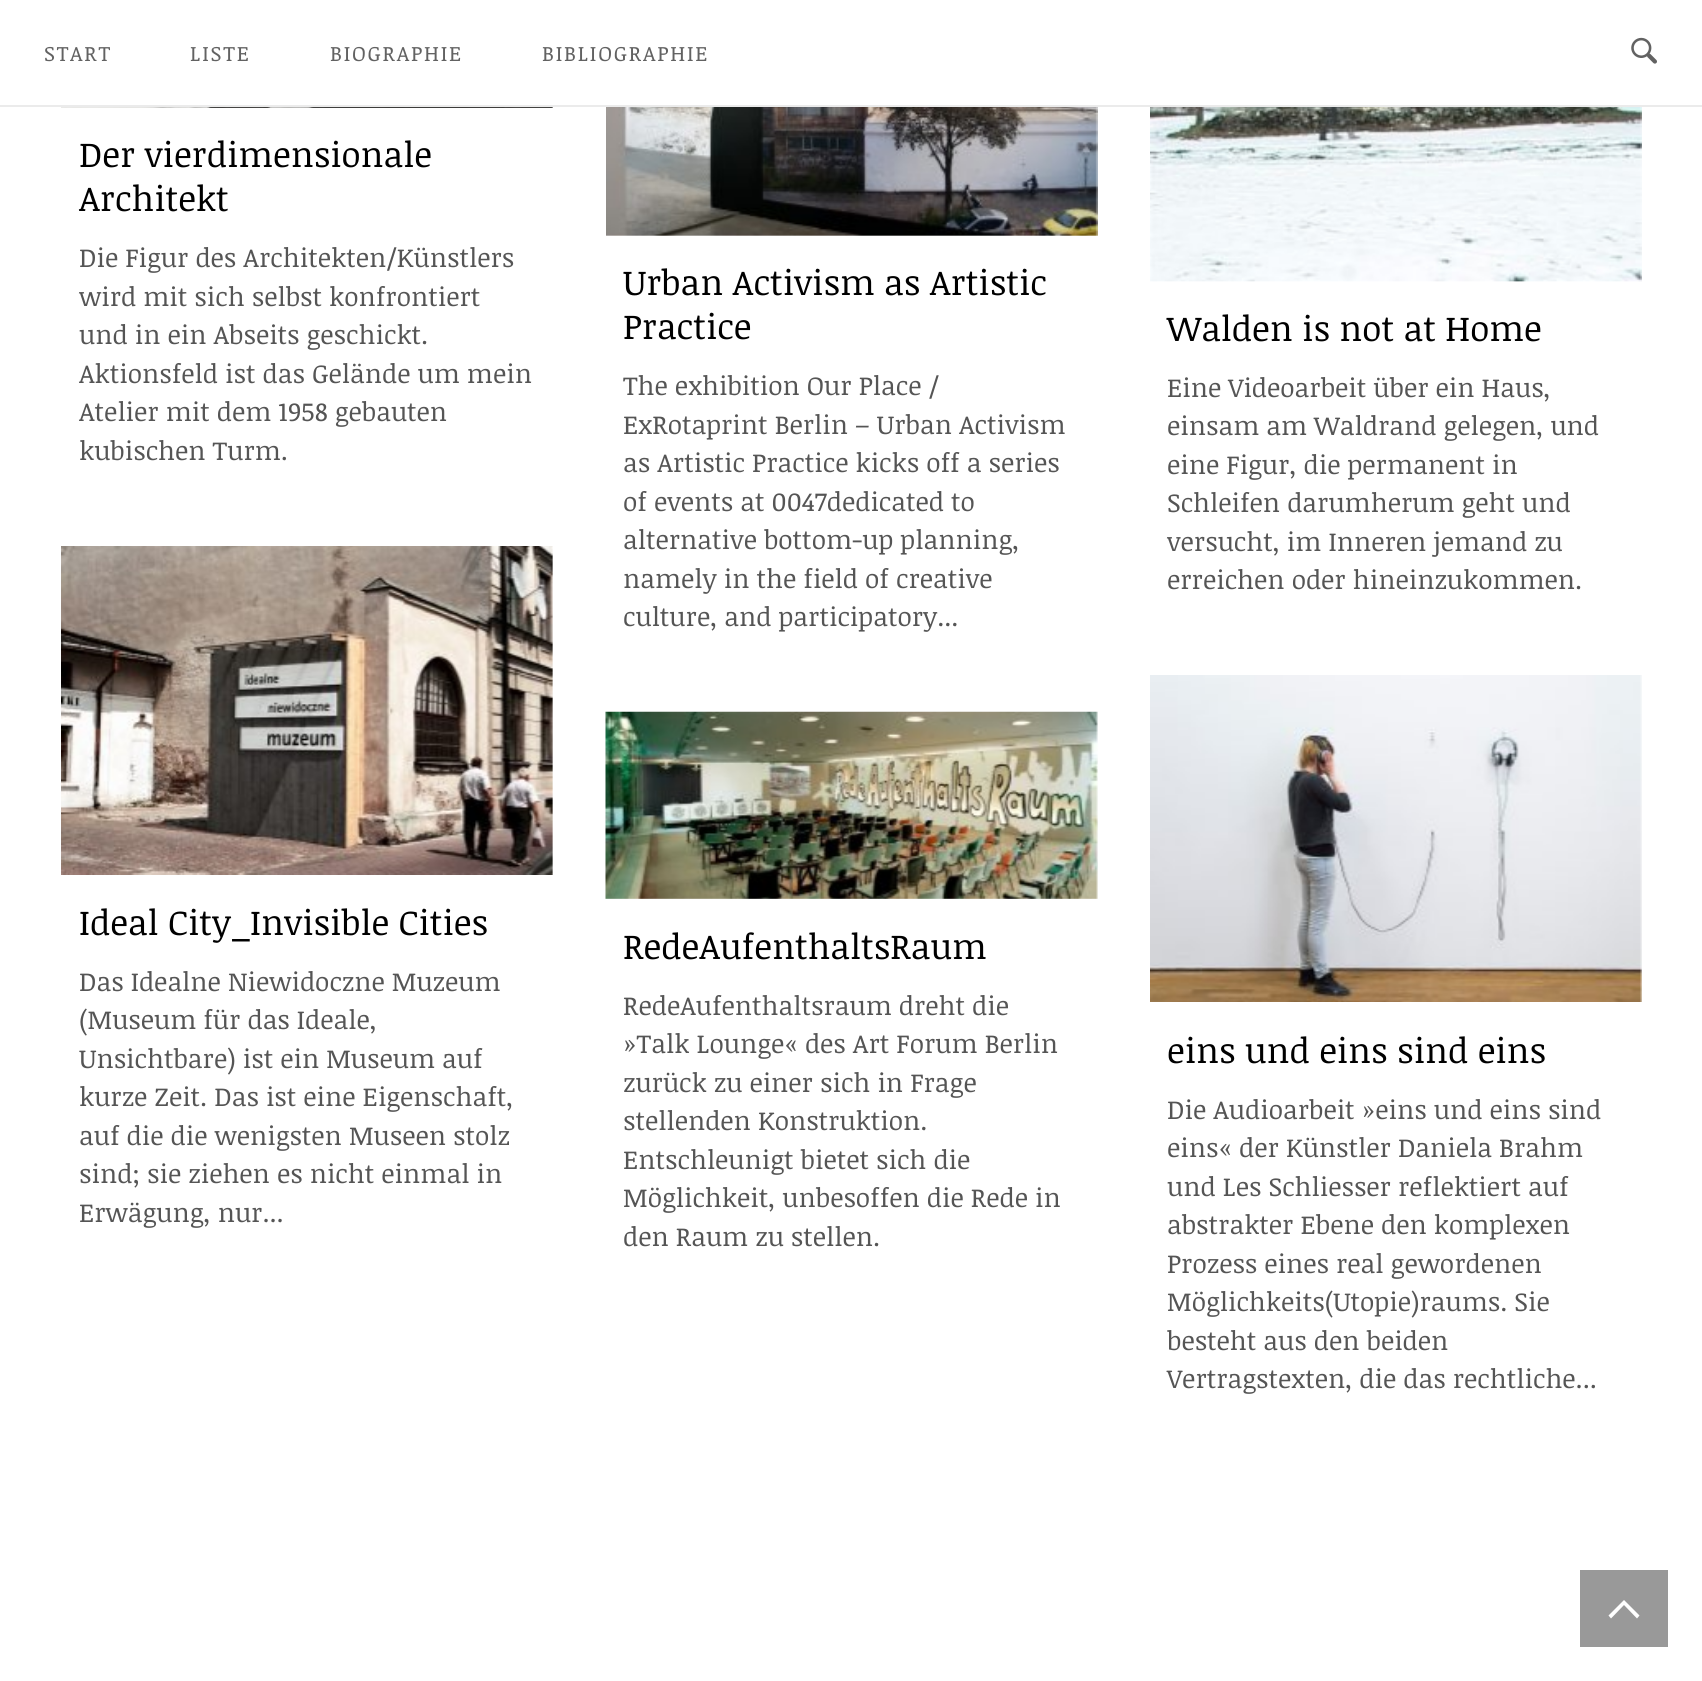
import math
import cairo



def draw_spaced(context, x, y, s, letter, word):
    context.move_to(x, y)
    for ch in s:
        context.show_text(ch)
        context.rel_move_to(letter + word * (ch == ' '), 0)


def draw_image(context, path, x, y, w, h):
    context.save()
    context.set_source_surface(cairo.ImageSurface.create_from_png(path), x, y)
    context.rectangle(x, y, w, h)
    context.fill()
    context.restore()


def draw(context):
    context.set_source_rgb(1, 1, 1)
    context.paint()
    context.set_source_rgb(235 / 255, 235 / 255, 235 / 255)
    context.rectangle(0, 105, 1702, 2)
    context.fill()
    draw_image(context, "images/1.png", 1631, 37, 26, 27)
    draw_image(context, "images/2.png", 61, 107, 492, 1)
    draw_image(context, "images/3.png", 606, 107, 492, 129)
    draw_image(context, "images/4.png", 1150, 107, 492, 175)
    draw_image(context, "images/5.png", 61, 546, 492, 329)
    draw_image(context, "images/6.png", 605, 711, 493, 188)
    draw_image(context, "images/7.png", 1150, 675, 492, 327)
    context.set_source_rgb(153 / 255, 153 / 255, 153 / 255)
    context.rectangle(1580, 1570, 88, 77)
    context.fill()
    context.set_source_rgb(1, 1, 1)
    context.new_path()
    context.move_to(1637, 1618.5)
    context.line_to(1624, 1605)
    context.line_to(1611, 1618.5)
    context.line_to(1608.5, 1615.5)
    context.line_to(1624, 1600)
    context.line_to(1639.5, 1615.5)
    context.close_path()
    context.fill()
    context.select_font_face("Noticia Text")
    context.set_font_size(21)
    context.set_source_rgb(98 / 255, 98 / 255, 98 / 255)
    draw_spaced(context, 44, 61, "START", 1.75, 0)
    draw_spaced(context, 190, 61, "LISTE", 1.75, 0)
    draw_spaced(context, 330, 61, "BIOGRAPHIE", 1.75, 0)
    draw_spaced(context, 542, 61, "BIBLIOGRAPHIE", 1.75, 0)
    context.set_font_size(35)
    context.set_source_rgb(0, 0, 0)
    context.move_to(79, 167)
    context.show_text("Der vierdimensionale")
    context.move_to(79, 211)
    context.show_text("Architekt")
    context.set_font_size(26.25)
    context.set_source_rgb(85 / 255, 85 / 255, 85 / 255)
    context.move_to(79, 267)
    context.show_text("Die Figur des Architekten/Künstlers")
    context.move_to(79, 306)
    context.show_text("wird mit sich selbst konfrontiert")
    context.move_to(79, 344)
    context.show_text("und in ein Abseits geschickt.")
    context.move_to(79, 383)
    context.show_text("Aktionsfeld ist das Gelände um mein")
    context.move_to(79, 421)
    context.show_text("Atelier mit dem 1958 gebauten")
    context.move_to(79, 460)
    context.show_text("kubischen Turm.")
    context.set_font_size(35)
    context.set_source_rgb(0, 0, 0)
    context.move_to(623, 295)
    context.show_text("Urban Activism as Artistic")
    context.move_to(623, 339)
    context.show_text("Practice")
    context.set_font_size(26.25)
    context.set_source_rgb(85 / 255, 85 / 255, 85 / 255)
    context.move_to(623, 395)
    context.show_text("The exhibition Our Place /")
    context.move_to(623, 434)
    context.show_text("ExRotaprint Berlin – Urban Activism")
    context.move_to(623, 472)
    context.show_text("as Artistic Practice kicks off a series")
    context.move_to(623, 511)
    context.show_text("of events at 0047dedicated to")
    context.move_to(623, 549)
    context.show_text("alternative bottom-up planning,")
    context.move_to(623, 588)
    context.show_text("namely in the field of creative")
    context.move_to(623, 626)
    context.show_text("culture, and participatory...")
    context.set_font_size(35)
    context.set_source_rgb(0, 0, 0)
    context.move_to(1167, 341)
    context.show_text("Walden is not at Home")
    context.set_font_size(26.25)
    context.set_source_rgb(85 / 255, 85 / 255, 85 / 255)
    context.move_to(1167, 397)
    context.show_text("Eine Videoarbeit über ein Haus,")
    context.move_to(1167, 435)
    context.show_text("einsam am Waldrand gelegen, und")
    context.move_to(1167, 474)
    context.show_text("eine Figur, die permanent in")
    context.move_to(1167, 512)
    context.show_text("Schleifen darumherum geht und")
    context.move_to(1167, 551)
    context.show_text("versucht, im Inneren jemand zu")
    context.move_to(1167, 589)
    context.show_text("erreichen oder hineinzukommen.")
    context.set_font_size(35)
    context.set_source_rgb(0, 0, 0)
    context.move_to(79, 935)
    context.show_text("Ideal City_Invisible Cities")
    context.set_font_size(26.25)
    context.set_source_rgb(85 / 255, 85 / 255, 85 / 255)
    context.move_to(79, 991)
    context.show_text("Das Idealne Niewidoczne Muzeum")
    context.move_to(79, 1029)
    context.show_text("(Museum für das Ideale,")
    context.move_to(79, 1068)
    context.show_text("Unsichtbare) ist ein Museum auf")
    context.move_to(79, 1106)
    context.show_text("kurze Zeit. Das ist eine Eigenschaft,")
    context.move_to(79, 1145)
    context.show_text("auf die die wenigsten Museen stolz")
    context.move_to(79, 1183)
    context.show_text("sind; sie ziehen es nicht einmal in")
    context.move_to(79, 1222)
    context.show_text("Erwägung, nur...")
    context.set_font_size(35)
    context.set_source_rgb(0, 0, 0)
    context.move_to(623, 959)
    context.show_text("RedeAufenthaltsRaum")
    context.set_font_size(26.25)
    context.set_source_rgb(85 / 255, 85 / 255, 85 / 255)
    context.move_to(623, 1015)
    context.show_text("RedeAufenthaltsraum dreht die")
    context.move_to(623, 1053)
    context.show_text("»Talk Lounge« des Art Forum Berlin")
    context.move_to(623, 1092)
    context.show_text("zurück zu einer sich in Frage")
    context.move_to(623, 1130)
    context.show_text("stellenden Konstruktion.")
    context.move_to(623, 1169)
    context.show_text("Entschleunigt bietet sich die")
    context.move_to(623, 1207)
    context.show_text("Möglichkeit, unbesoffen die Rede in")
    context.move_to(623, 1246)
    context.show_text("den Raum zu stellen.")
    context.set_font_size(35)
    context.set_source_rgb(0, 0, 0)
    context.move_to(1167, 1063)
    context.show_text("eins und eins sind eins")
    context.set_font_size(26.25)
    context.set_source_rgb(85 / 255, 85 / 255, 85 / 255)
    context.move_to(1167, 1119)
    context.show_text("Die Audioarbeit »eins und eins sind")
    context.move_to(1167, 1157)
    context.show_text("eins« der Künstler Daniela Brahm")
    context.move_to(1167, 1196)
    context.show_text("und Les Schliesser reflektiert auf")
    context.move_to(1167, 1234)
    context.show_text("abstrakter Ebene den komplexen")
    context.move_to(1167, 1273)
    context.show_text("Prozess eines real gewordenen")
    context.move_to(1167, 1311)
    context.show_text("Möglichkeits(Utopie)raums. Sie")
    context.move_to(1167, 1350)
    context.show_text("besteht aus den beiden")
    context.move_to(1167, 1388)
    context.show_text("Vertragstexten, die das rechtliche...")


surface = cairo.ImageSurface(cairo.Format.RGB24, 1702, 1681)
context = cairo.Context(surface)
options = cairo.FontOptions()
options.set_hint_metrics(cairo.HintMetrics.OFF)
options.set_hint_style(cairo.HintStyle.NONE)
context.set_font_options(options)
context.set_miter_limit(4)
draw(context)
surface.write_to_png("out.png")
